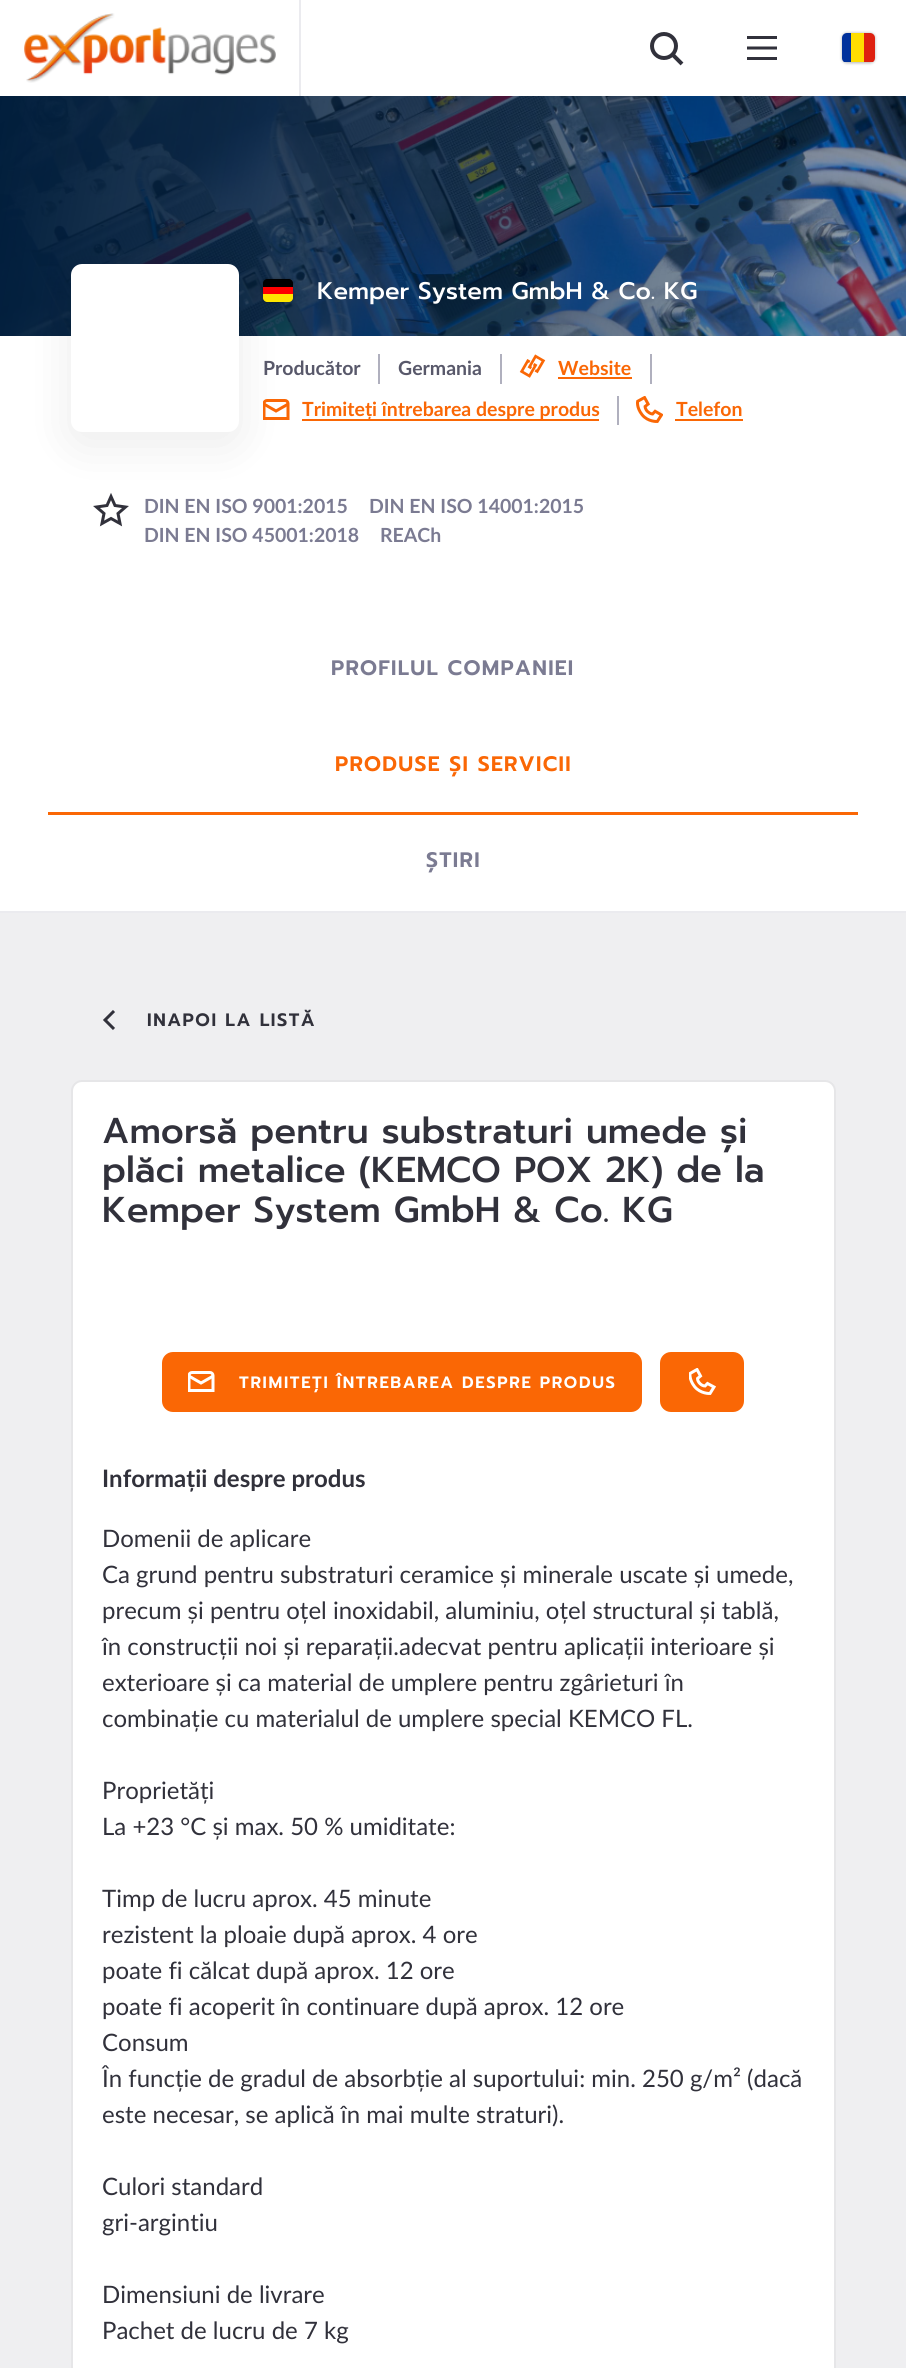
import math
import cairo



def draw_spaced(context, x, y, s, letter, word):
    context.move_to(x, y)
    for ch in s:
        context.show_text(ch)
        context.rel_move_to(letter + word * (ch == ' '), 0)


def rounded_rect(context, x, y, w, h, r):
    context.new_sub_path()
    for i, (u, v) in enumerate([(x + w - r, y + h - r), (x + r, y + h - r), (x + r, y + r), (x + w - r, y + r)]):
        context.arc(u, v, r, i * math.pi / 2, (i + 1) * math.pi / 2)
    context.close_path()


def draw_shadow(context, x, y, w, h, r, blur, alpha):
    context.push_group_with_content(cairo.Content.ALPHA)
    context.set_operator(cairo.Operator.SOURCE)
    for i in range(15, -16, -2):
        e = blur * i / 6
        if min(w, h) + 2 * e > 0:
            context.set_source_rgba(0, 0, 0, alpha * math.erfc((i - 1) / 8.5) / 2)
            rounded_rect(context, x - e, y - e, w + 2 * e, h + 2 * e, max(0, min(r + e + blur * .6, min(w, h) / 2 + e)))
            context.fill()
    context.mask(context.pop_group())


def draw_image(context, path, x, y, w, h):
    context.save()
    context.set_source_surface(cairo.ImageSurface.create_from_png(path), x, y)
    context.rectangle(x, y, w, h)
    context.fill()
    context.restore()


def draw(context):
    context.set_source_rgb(1, 1, 1)
    context.paint()
    draw_image(context, "images/1.png", 24, 13, 252, 70)
    context.set_source_rgb(235 / 255, 235 / 255, 239 / 255)
    context.rectangle(299, 0, 2, 96)
    context.fill()
    context.arc(664, 46, 12, 0, 2 * math.pi)
    context.set_source_rgb(49 / 255, 49 / 255, 59 / 255)
    context.set_line_width(4)
    context.stroke()
    context.new_path()
    context.move_to(673, 55)
    context.line_to(682, 64)
    context.stroke()
    context.rectangle(747, 57, 30, 3)
    context.fill()
    context.new_path()
    context.move_to(747, 48)
    context.line_to(777, 48)
    context.set_line_width(3)
    context.stroke()
    context.rectangle(747, 36, 30, 3)
    context.fill()
    context.set_source_rgb(0, 0, 0)
    draw_shadow(context, 842, 33, 33, 30, 5, 1.5, 0.3)
    context.save()
    rounded_rect(context, 842, 33, 33, 30, 5)
    context.clip()
    context.set_source_rgb(0, 49 / 255, 156 / 255)
    context.new_path()
    context.move_to(847, 33)
    context.line_to(851, 33)
    context.line_to(851, 62)
    context.line_to(842, 62)
    context.line_to(842, 38)
    context.curve_to(842, 35, 844, 33, 847, 33)
    context.close_path()
    context.fill()
    context.restore()
    context.set_source_rgb(1, 222 / 255, 0)
    context.rectangle(851, 33, 13, 29)
    context.fill()
    context.save()
    rounded_rect(context, 842, 33, 33, 30, 5)
    context.clip()
    context.set_source_rgb(222 / 255, 33 / 255, 16 / 255)
    context.new_path()
    context.move_to(864, 33)
    context.line_to(870, 33)
    context.curve_to(873, 33, 875, 35, 875, 38)
    context.line_to(875, 62)
    context.line_to(864, 62)
    context.close_path()
    context.fill()
    context.restore()
    draw_image(context, "images/2.png", 0, 96, 906, 240)
    context.set_source_rgb(235 / 255, 235 / 255, 239 / 255)
    context.rectangle(0, 911, 906, 2)
    context.fill()
    context.set_source_rgb(0, 0, 0)
    draw_shadow(context, 71, 276, 168, 168, 11, 24, 0.08)
    context.set_source_rgb(1, 1, 1)
    rounded_rect(context, 71, 264, 168, 168, 11)
    context.fill()
    context.set_source_rgb(0, 0, 0)
    draw_shadow(context, 263, 279, 30, 23, 4, 1.5, 0.3)
    context.set_source_rgb(1, 230 / 255, 0)
    context.new_path()
    context.move_to(263, 294)
    context.line_to(293, 294)
    context.line_to(293, 298)
    context.curve_to(293, 300, 291, 302, 289, 302)
    context.line_to(267, 302)
    context.curve_to(265, 302, 263, 300, 263, 298)
    context.close_path()
    context.fill()
    context.set_source_rgb(0, 0, 0)
    context.new_path()
    context.move_to(267, 279)
    context.line_to(289, 279)
    context.curve_to(291, 279, 293, 281, 293, 283)
    context.line_to(293, 287)
    context.line_to(263, 287)
    context.line_to(263, 283)
    context.curve_to(263, 281, 265, 279, 267, 279)
    context.close_path()
    context.fill()
    context.set_source_rgb(1, 0, 0)
    context.rectangle(263, 287, 30, 7)
    context.fill()
    context.set_source_rgb(176 / 255, 176 / 255, 190 / 255)
    context.rectangle(500, 354, 2, 30)
    context.fill()
    context.rectangle(378, 354, 2, 30)
    context.fill()
    context.rectangle(650, 354, 2, 30)
    context.fill()
    draw_image(context, "images/3.png", 519, 354, 27, 24)
    context.set_source_rgb(250 / 255, 103 / 255, 5 / 255)
    context.rectangle(558, 377, 74, 2)
    context.fill()
    context.set_source_rgb(176 / 255, 176 / 255, 190 / 255)
    context.rectangle(617, 396, 2, 29)
    context.fill()
    draw_image(context, "images/4.png", 263, 399, 27, 21)
    context.set_source_rgb(250 / 255, 103 / 255, 5 / 255)
    context.rectangle(302, 419, 297, 2)
    context.fill()
    draw_image(context, "images/5.png", 636, 396, 27, 27)
    context.rectangle(675, 419, 68, 2)
    context.fill()
    context.new_path()
    context.move_to(111, 496.5)
    context.line_to(115, 505.5)
    context.line_to(125.5, 507)
    context.line_to(118, 513.5)
    context.line_to(120, 523.5)
    context.line_to(111, 518.5)
    context.line_to(102, 523.5)
    context.line_to(104, 513.5)
    context.line_to(96.5, 507)
    context.line_to(107, 505.5)
    context.close_path()
    context.set_source_rgb(49 / 255, 49 / 255, 59 / 255)
    context.stroke()
    context.set_source_rgb(250 / 255, 103 / 255, 5 / 255)
    context.rectangle(48, 812, 810, 3)
    context.fill()
    context.set_source_rgb(239 / 255, 239 / 255, 241 / 255)
    context.rectangle(0, 913, 906, 1455)
    context.fill()
    context.new_path()
    context.move_to(114, 1029)
    context.line_to(105, 1020)
    context.line_to(114, 1011)
    context.set_source_rgb(49 / 255, 49 / 255, 59 / 255)
    context.stroke()
    context.set_source_rgb(1, 1, 1)
    rounded_rect(context, 71, 1080, 765, 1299, 11)
    context.fill()
    rounded_rect(context, 72, 1081, 763, 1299, 10)
    context.set_source_rgba(49 / 255, 49 / 255, 59 / 255, 0.12)
    context.set_line_width(2)
    context.stroke()
    context.set_source_rgb(250 / 255, 103 / 255, 5 / 255)
    rounded_rect(context, 163, 1353, 478, 58, 10)
    context.fill_preserve()
    context.stroke()
    draw_image(context, "images/6.png", 188, 1371, 27, 21)
    rounded_rect(context, 661, 1353, 82, 58, 10)
    context.fill_preserve()
    context.stroke()
    context.save()
    context.rectangle(689, 1368, 27, 27)
    context.clip()
    context.new_path()
    context.move_to(700.5, 1376)
    context.line_to(697, 1369.5)
    context.line_to(690, 1373.5)
    context.curve_to(690, 1373.5, 689, 1379.5, 694.5, 1386.5)
    context.curve_to(700.5, 1394, 710, 1393.5, 710, 1393.5)
    context.line_to(714, 1387)
    context.line_to(707.5, 1383.5)
    context.line_to(705, 1386)
    context.curve_to(701.5, 1386, 697.5, 1382, 697.5, 1378.5)
    context.close_path()
    context.set_source_rgb(1, 1, 1)
    context.set_line_width(3)
    context.stroke()
    context.restore()
    context.select_font_face("Prompt Medium")
    context.set_font_size(24)
    context.set_source_rgb(1, 1, 1)
    context.move_to(317, 299)
    context.show_text("Kemper System GmbH & Co. KG")
    context.select_font_face("Lato", cairo.FontSlant.NORMAL, cairo.FontWeight.BOLD)
    context.set_font_size(19.5)
    context.set_source_rgb(88 / 255, 88 / 255, 106 / 255)
    context.move_to(263, 375)
    context.show_text("Producător")
    context.move_to(398, 375)
    context.show_text("Germania")
    context.set_source_rgb(250 / 255, 103 / 255, 5 / 255)
    context.move_to(558, 375)
    context.show_text("Website")
    context.move_to(302, 416)
    context.show_text("Trimiteți întrebarea despre produs")
    context.move_to(676, 416)
    context.show_text("Telefon")
    context.set_source_rgb(123 / 255, 123 / 255, 146 / 255)
    context.move_to(144, 513)
    context.show_text("DIN EN ISO 9001:2015")
    context.move_to(369, 513)
    context.show_text("DIN EN ISO 14001:2015")
    context.move_to(144, 542)
    context.show_text("DIN EN ISO 45001:2018")
    context.move_to(380, 542)
    context.show_text("REACh")
    context.select_font_face("Prompt SemiBold")
    context.set_font_size(21)
    draw_spaced(context, 331, 675, "PROFILUL COMPANIEI", 1.25, 0)
    context.set_source_rgb(250 / 255, 103 / 255, 5 / 255)
    draw_spaced(context, 335, 771, "PRODUSE ȘI SERVICII", 1.25, 0)
    context.set_source_rgb(123 / 255, 123 / 255, 146 / 255)
    draw_spaced(context, 426, 867, "ȘTIRI", 1.25, 0)
    context.set_font_size(18)
    context.set_source_rgb(49 / 255, 49 / 255, 59 / 255)
    draw_spaced(context, 147, 1026, "INAPOI LA LISTĂ", 1.5, 0)
    context.select_font_face("Prompt Medium")
    context.set_font_size(36)
    context.move_to(102, 1143)
    context.show_text("Amorsă pentru substraturi umede și")
    context.move_to(102, 1182)
    context.show_text("plăci metalice (KEMCO POX 2K) de la")
    context.move_to(102, 1222)
    context.show_text("Kemper System GmbH & Co. KG")
    context.select_font_face("Prompt SemiBold")
    context.set_font_size(16.5)
    context.set_source_rgb(1, 1, 1)
    draw_spaced(context, 239, 1388, "TRIMITEȚI ÎNTREBAREA DESPRE PRODUS", 1.65, 0)
    context.select_font_face("Lato", cairo.FontSlant.NORMAL, cairo.FontWeight.BOLD)
    context.set_font_size(24)
    context.set_source_rgb(49 / 255, 49 / 255, 59 / 255)
    context.move_to(102, 1487)
    context.show_text("Informații despre produs")
    context.select_font_face("Lato")
    context.move_to(102, 1547)
    context.show_text("Domenii de aplicare")
    context.move_to(102, 1583)
    context.show_text("Ca grund pentru substraturi ceramice și minerale uscate și umede,")
    context.move_to(102, 1619)
    context.show_text("precum și pentru oțel inoxidabil, aluminiu, oțel structural și tablă,")
    context.move_to(102, 1655)
    context.show_text("în construcții noi și reparații.adecvat pentru aplicații interioare și")
    context.move_to(102, 1691)
    context.show_text("exterioare și ca material de umplere pentru zgârieturi în")
    context.move_to(102, 1727)
    context.show_text("combinație cu materialul de umplere special KEMCO FL.")
    context.move_to(102, 1799)
    context.show_text("Proprietăți")
    context.move_to(102, 1835)
    context.show_text("La +23 °C și max. 50 % umiditate:")
    context.move_to(102, 1907)
    context.show_text("Timp de lucru aprox. 45 minute")
    context.move_to(102, 1943)
    context.show_text("rezistent la ploaie după aprox. 4 ore")
    context.move_to(102, 1979)
    context.show_text("poate fi călcat după aprox. 12 ore")
    context.move_to(102, 2015)
    context.show_text("poate fi acoperit în continuare după aprox. 12 ore")
    context.move_to(102, 2051)
    context.show_text("Consum")
    context.move_to(102, 2087)
    context.show_text("În funcție de gradul de absorbție al suportului: min. 250 g/m² (dacă")
    context.move_to(102, 2123)
    context.show_text("este necesar, se aplică în mai multe straturi).")
    context.move_to(102, 2195)
    context.show_text("Culori standard")
    context.move_to(102, 2231)
    context.show_text("gri-argintiu")
    context.move_to(102, 2303)
    context.show_text("Dimensiuni de livrare")
    context.move_to(102, 2339)
    context.show_text("Pachet de lucru de 7 kg")


surface = cairo.ImageSurface(cairo.Format.RGB24, 906, 2368)
context = cairo.Context(surface)
options = cairo.FontOptions()
options.set_hint_metrics(cairo.HintMetrics.OFF)
options.set_hint_style(cairo.HintStyle.NONE)
context.set_font_options(options)
context.set_miter_limit(4)
draw(context)
surface.write_to_png("out.png")
